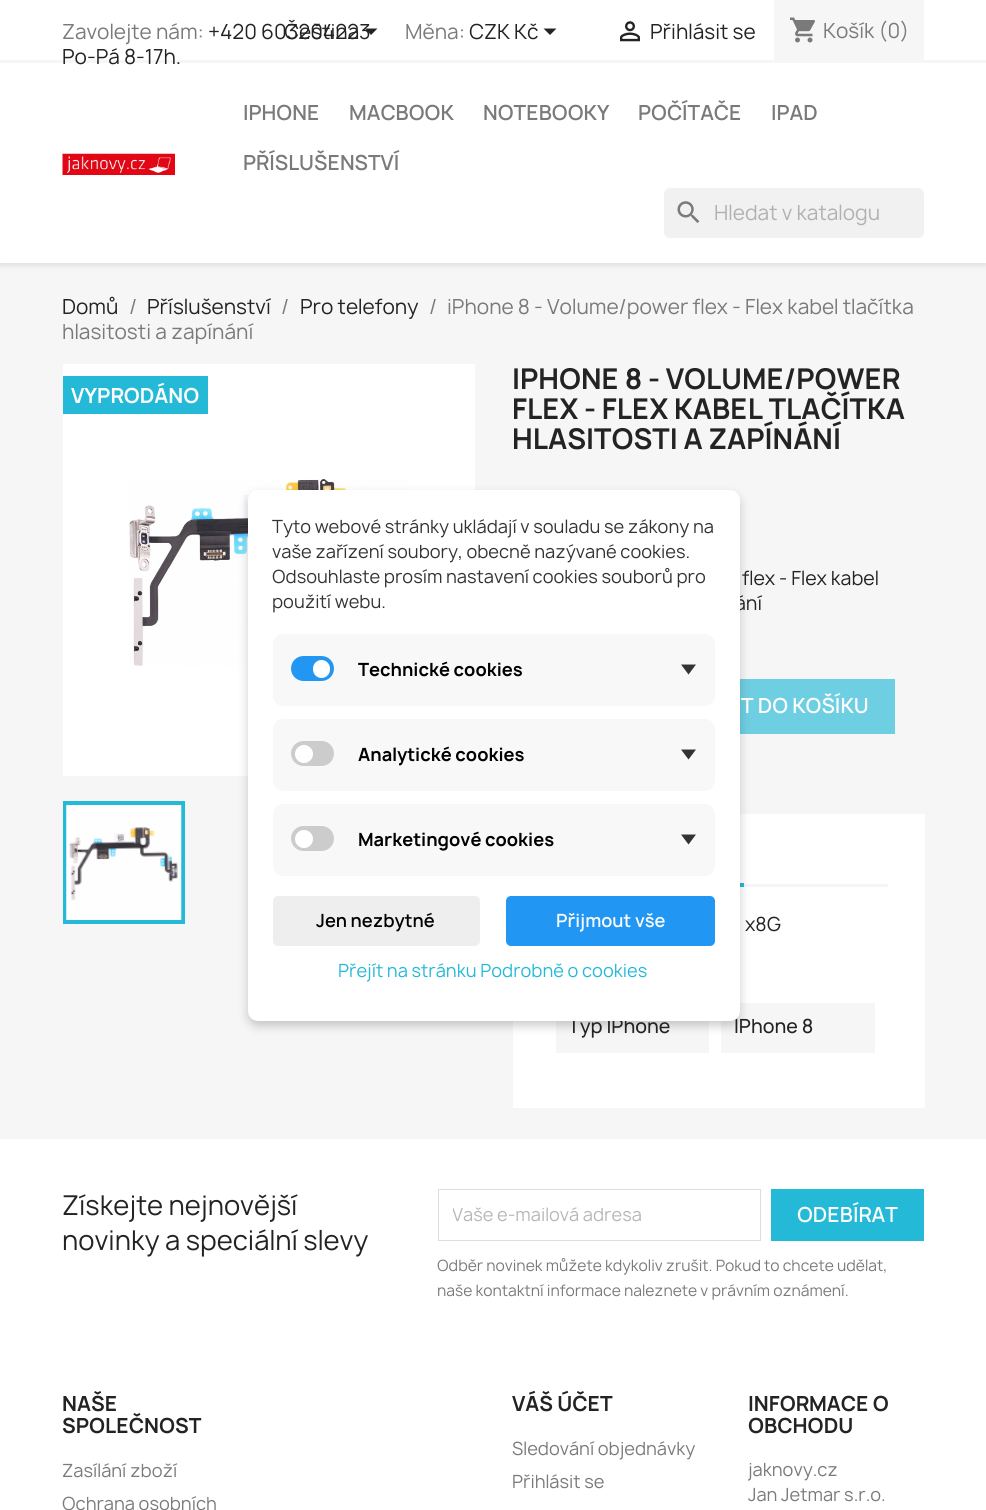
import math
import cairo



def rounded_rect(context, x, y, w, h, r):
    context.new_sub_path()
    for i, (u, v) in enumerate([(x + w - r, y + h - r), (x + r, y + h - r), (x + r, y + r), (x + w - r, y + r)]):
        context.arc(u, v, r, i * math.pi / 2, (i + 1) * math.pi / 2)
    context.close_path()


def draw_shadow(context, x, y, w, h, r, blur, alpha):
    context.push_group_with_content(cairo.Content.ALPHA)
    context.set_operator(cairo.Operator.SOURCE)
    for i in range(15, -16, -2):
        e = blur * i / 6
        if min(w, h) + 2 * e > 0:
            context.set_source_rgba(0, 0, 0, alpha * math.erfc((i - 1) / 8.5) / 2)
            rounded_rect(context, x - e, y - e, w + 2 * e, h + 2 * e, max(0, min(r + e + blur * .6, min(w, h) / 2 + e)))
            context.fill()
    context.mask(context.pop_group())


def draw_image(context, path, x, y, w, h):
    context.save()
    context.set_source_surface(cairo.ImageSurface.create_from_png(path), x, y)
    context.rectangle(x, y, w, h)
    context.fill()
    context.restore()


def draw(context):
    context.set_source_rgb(1, 1, 1)
    context.paint()
    context.set_source_rgb(246 / 255, 246 / 255, 246 / 255)
    context.rectangle(0, 263, 986, 876)
    context.fill()
    context.set_source_rgb(0, 0, 0)
    draw_shadow(context, 0, 3, 986, 262, 0, 3, 0.11)
    context.set_source_rgb(1, 1, 1)
    context.rectangle(0, 0, 986, 263)
    context.fill()
    context.set_source_rgb(246 / 255, 246 / 255, 246 / 255)
    context.rectangle(0, 60, 986, 3)
    context.fill()
    context.set_source_rgb(35 / 255, 35 / 255, 35 / 255)
    context.new_path()
    context.move_to(365, 28.5)
    context.line_to(377.5, 28.5)
    context.line_to(371, 35)
    context.close_path()
    context.fill()
    context.new_path()
    context.move_to(543.5, 28.5)
    context.line_to(556.5, 28.5)
    context.line_to(550, 35)
    context.close_path()
    context.fill()
    draw_image(context, "images/1.png", 620, 21, 20, 21)
    context.set_source_rgb(246 / 255, 246 / 255, 246 / 255)
    context.rectangle(774, 0, 150, 60)
    context.fill()
    draw_image(context, "images/2.png", 790, 17, 25, 26)
    draw_image(context, "images/3.png", 62, 153, 113, 22)
    context.set_source_rgb(241 / 255, 241 / 255, 241 / 255)
    rounded_rect(context, 664, 188, 260, 50, 6)
    context.fill()
    draw_image(context, "images/4.png", 677, 201, 23, 22)
    context.set_source_rgb(1, 1, 1)
    context.rectangle(63, 364, 412, 412)
    context.fill()
    draw_image(context, "images/5.png", 129, 479, 278, 187)
    context.rectangle(65, 803, 118, 119)
    context.set_source_rgb(36 / 255, 185 / 255, 215 / 255)
    context.set_line_width(4)
    context.stroke()
    draw_image(context, "images/6.png", 66, 805, 116, 115)
    context.rectangle(63, 376, 145, 38)
    context.fill()
    context.set_source_rgb(110 / 255, 206 / 255, 226 / 255)
    context.rectangle(740, 679, 155, 55)
    context.fill()
    context.set_source_rgb(1, 1, 1)
    context.rectangle(513, 814, 412, 294)
    context.fill()
    context.set_source_rgb(246 / 255, 246 / 255, 246 / 255)
    context.rectangle(744, 884, 144, 3)
    context.fill()
    context.set_source_rgb(36 / 255, 185 / 255, 215 / 255)
    context.rectangle(740, 883, 4, 4)
    context.fill()
    context.set_source_rgb(246 / 255, 246 / 255, 246 / 255)
    context.rectangle(556, 1021, 153, 32)
    context.fill()
    context.rectangle(721, 1003, 154, 50)
    context.fill()
    context.rectangle(438.5, 1189.5, 322, 51)
    context.set_source_rgb(221 / 255, 221 / 255, 221 / 255)
    context.set_line_width(1)
    context.stroke()
    context.set_source_rgb(36 / 255, 185 / 255, 215 / 255)
    context.rectangle(771, 1189, 153, 52)
    context.fill()
    context.set_source_rgb(0, 0, 0)
    draw_shadow(context, 248, 495, 492, 531, 10, 5, 0.2)
    context.select_font_face("Manrope")
    context.set_font_size(20)
    context.set_source_rgb(122 / 255, 122 / 255, 122 / 255)
    context.move_to(62, 39)
    context.show_text("Zavolejte nám:")
    context.set_source_rgb(35 / 255, 35 / 255, 35 / 255)
    context.move_to(208, 39)
    context.show_text("+420 603204223")
    context.move_to(62, 64)
    context.show_text("Po-Pá 8-17h.")
    context.move_to(284, 39)
    context.show_text("Čeština")
    context.set_source_rgb(122 / 255, 122 / 255, 122 / 255)
    context.move_to(405, 39)
    context.show_text("Měna:")
    context.set_source_rgb(35 / 255, 35 / 255, 35 / 255)
    context.move_to(469, 39)
    context.show_text("CZK Kč")
    context.move_to(650, 39)
    context.show_text("Přihlásit se")
    context.set_source_rgb(122 / 255, 122 / 255, 122 / 255)
    context.move_to(823, 38)
    context.show_text("Košík (0)")
    context.select_font_face("Manrope SemiBold")
    context.move_to(243, 120)
    context.show_text("IPHONE")
    context.move_to(349, 120)
    context.show_text("MACBOOK")
    context.move_to(483, 120)
    context.show_text("NOTEBOOKY")
    context.move_to(638, 120)
    context.show_text("POČÍTAČE")
    context.move_to(771, 120)
    context.show_text("IPAD")
    context.move_to(243, 170)
    context.show_text("PŘÍSLUŠENSTVÍ")
    context.select_font_face("Manrope")
    context.set_source_rgb(177 / 255, 177 / 255, 177 / 255)
    context.move_to(714, 220)
    context.show_text("Hledat v katalogu")
    context.set_source_rgb(35 / 255, 35 / 255, 35 / 255)
    context.move_to(62, 314)
    context.show_text("Domů")
    context.set_source_rgb(122 / 255, 122 / 255, 122 / 255)
    context.move_to(129, 314)
    context.show_text("/")
    context.set_source_rgb(35 / 255, 35 / 255, 35 / 255)
    context.move_to(147, 314)
    context.show_text("Příslušenství")
    context.set_source_rgb(122 / 255, 122 / 255, 122 / 255)
    context.move_to(281, 314)
    context.show_text("/")
    context.set_source_rgb(35 / 255, 35 / 255, 35 / 255)
    context.move_to(300, 314)
    context.show_text("Pro telefony")
    context.set_source_rgb(122 / 255, 122 / 255, 122 / 255)
    context.move_to(429, 314)
    context.show_text("/")
    context.move_to(447, 314)
    context.show_text("iPhone 8 - Volume/power flex - Flex kabel tlačítka")
    context.move_to(62, 339)
    context.show_text("hlasitosti a zapínání")
    context.select_font_face("Manrope", cairo.FontSlant.NORMAL, cairo.FontWeight.BOLD)
    context.set_source_rgb(252 / 255, 252 / 255, 252 / 255)
    context.move_to(71, 403)
    context.show_text("VYPRODÁNO")
    context.set_font_size(27.5)
    context.set_source_rgb(35 / 255, 35 / 255, 35 / 255)
    context.move_to(512, 389)
    context.show_text("IPHONE 8 - VOLUME/POWER")
    context.move_to(512, 419)
    context.show_text("FLEX - FLEX KABEL TLAČÍTKA")
    context.move_to(512, 449)
    context.show_text("HLASITOSTI A ZAPÍNÁNÍ")
    context.select_font_face("Manrope")
    context.set_font_size(18.75)
    context.move_to(742, 585)
    context.show_text("flex - Flex kabel")
    context.move_to(735, 610)
    context.show_text("ání")
    context.select_font_face("Manrope SemiBold")
    context.set_font_size(20)
    context.set_source_rgb(252 / 255, 252 / 255, 252 / 255)
    context.move_to(741, 713)
    context.show_text("T DO KOŠÍKU")
    context.select_font_face("Manrope")
    context.set_font_size(18.75)
    context.set_source_rgb(35 / 255, 35 / 255, 35 / 255)
    context.move_to(745, 931)
    context.show_text("x8G")
    context.select_font_face("Manrope Medium")
    context.move_to(568, 1033)
    context.show_text("Typ IPhone")
    context.move_to(734, 1033)
    context.show_text("IPhone 8")
    context.select_font_face("Manrope")
    context.set_font_size(26.25)
    context.move_to(62, 1215)
    context.show_text("Získejte nejnovější")
    context.move_to(62, 1250)
    context.show_text("novinky a speciální slevy")
    context.save()
    context.rectangle(453, 1200, 293, 29)
    context.clip()
    context.set_font_size(17.5)
    context.set_source_rgb(183 / 255, 183 / 255, 183 / 255)
    context.move_to(452, 1221)
    context.show_text("Vaše e-mailová adresa")
    context.restore()
    context.select_font_face("Manrope SemiBold")
    context.set_font_size(20)
    context.set_source_rgb(252 / 255, 252 / 255, 252 / 255)
    context.move_to(797, 1222)
    context.show_text("ODEBÍRAT")
    context.select_font_face("Manrope")
    context.set_font_size(15)
    context.set_source_rgb(122 / 255, 122 / 255, 122 / 255)
    context.move_to(437, 1271)
    context.show_text("Odběr novinek můžete kdykoliv zrušit. Pokud to chcete udělat,")
    context.move_to(437, 1296)
    context.show_text("naše kontaktní informace naleznete v právním oznámení.")
    context.select_font_face("Manrope", cairo.FontSlant.NORMAL, cairo.FontWeight.BOLD)
    context.set_font_size(20)
    context.set_source_rgb(35 / 255, 35 / 255, 35 / 255)
    context.move_to(62, 1411)
    context.show_text("NAŠE")
    context.move_to(62, 1433)
    context.show_text("SPOLEČNOST")
    context.select_font_face("Manrope")
    context.set_font_size(17.5)
    context.set_source_rgb(122 / 255, 122 / 255, 122 / 255)
    context.move_to(62, 1477)
    context.show_text("Zasílání zboží")
    context.move_to(62, 1510)
    context.show_text("Ochrana osobních")
    context.select_font_face("Manrope", cairo.FontSlant.NORMAL, cairo.FontWeight.BOLD)
    context.set_font_size(20)
    context.set_source_rgb(35 / 255, 35 / 255, 35 / 255)
    context.move_to(512, 1411)
    context.show_text("VÁŠ ÚČET")
    context.select_font_face("Manrope")
    context.set_font_size(17.5)
    context.set_source_rgb(122 / 255, 122 / 255, 122 / 255)
    context.move_to(512, 1455)
    context.show_text("Sledování objednávky")
    context.move_to(512, 1488)
    context.show_text("Přihlásit se")
    context.select_font_face("Manrope", cairo.FontSlant.NORMAL, cairo.FontWeight.BOLD)
    context.set_font_size(20)
    context.set_source_rgb(35 / 255, 35 / 255, 35 / 255)
    context.move_to(748, 1411)
    context.show_text("INFORMACE O")
    context.move_to(748, 1433)
    context.show_text("OBCHODU")
    context.select_font_face("Manrope")
    context.set_font_size(17.5)
    context.set_source_rgb(122 / 255, 122 / 255, 122 / 255)
    context.move_to(748, 1476)
    context.show_text("jaknovy.cz")
    context.move_to(748, 1501)
    context.show_text("Jan Jetmar s.r.o.")
    context.set_source_rgb(1, 1, 1)
    rounded_rect(context, 248, 490, 492, 531, 10)
    context.fill()
    context.set_source_rgb(51 / 255, 51 / 255, 51 / 255)
    context.move_to(272, 533)
    context.show_text("Tyto webové stránky ukládají v souladu se zákony na")
    context.move_to(272, 558)
    context.show_text("vaše zařízení soubory, obecně nazývané cookies.")
    context.move_to(272, 583)
    context.show_text("Odsouhlaste prosím nastavení cookies souborů pro")
    context.move_to(272, 608)
    context.show_text("použití webu.")
    context.set_source_rgb(248 / 255, 248 / 255, 248 / 255)
    rounded_rect(context, 273, 634, 442, 72, 10)
    context.fill()
    context.set_source_rgb(33 / 255, 150 / 255, 243 / 255)
    rounded_rect(context, 291, 656, 43, 25, 12.5)
    context.fill()
    context.set_source_rgb(1, 1, 1)
    rounded_rect(context, 313, 660, 17, 18, 8.5)
    context.fill()
    context.select_font_face("Manrope", cairo.FontSlant.NORMAL, cairo.FontWeight.BOLD)
    context.set_source_rgb(0, 0, 0)
    context.move_to(358, 676)
    context.show_text("Technické cookies")
    context.set_source_rgb(51 / 255, 51 / 255, 51 / 255)
    context.new_path()
    context.move_to(681, 664.5)
    context.line_to(696, 664.5)
    context.line_to(688.5, 674.5)
    context.close_path()
    context.fill()
    context.set_source_rgb(248 / 255, 248 / 255, 248 / 255)
    rounded_rect(context, 273, 719, 442, 72, 10)
    context.fill()
    context.set_source_rgb(204 / 255, 204 / 255, 204 / 255)
    rounded_rect(context, 291, 741, 43, 25, 12.5)
    context.fill()
    context.set_source_rgb(1, 1, 1)
    context.arc(304, 754, 9, 0, 2 * math.pi)
    context.fill()
    context.set_source_rgb(0, 0, 0)
    context.move_to(358, 761)
    context.show_text("Analytické cookies")
    context.set_source_rgb(51 / 255, 51 / 255, 51 / 255)
    context.new_path()
    context.move_to(681, 749.5)
    context.line_to(696, 749.5)
    context.line_to(688.5, 759.5)
    context.close_path()
    context.fill()
    context.set_source_rgb(248 / 255, 248 / 255, 248 / 255)
    rounded_rect(context, 273, 804, 442, 72, 10)
    context.fill()
    context.set_source_rgb(204 / 255, 204 / 255, 204 / 255)
    rounded_rect(context, 291, 826, 43, 25, 12.5)
    context.fill()
    context.set_source_rgb(1, 1, 1)
    context.arc(304, 839, 9, 0, 2 * math.pi)
    context.fill()
    context.set_source_rgb(0, 0, 0)
    context.move_to(358, 846)
    context.show_text("Marketingové cookies")
    context.set_source_rgb(51 / 255, 51 / 255, 51 / 255)
    context.new_path()
    context.move_to(681, 834.5)
    context.line_to(696, 834.5)
    context.line_to(688.5, 844.5)
    context.close_path()
    context.fill()
    context.set_source_rgb(238 / 255, 238 / 255, 238 / 255)
    rounded_rect(context, 273, 896, 207, 50, 5)
    context.fill()
    context.select_font_face("Manrope SemiBold")
    context.set_source_rgb(0, 0, 0)
    context.move_to(316, 927)
    context.show_text("Jen nezbytné")
    context.set_source_rgb(33 / 255, 150 / 255, 243 / 255)
    rounded_rect(context, 506, 896, 209, 50, 5)
    context.fill()
    context.set_source_rgb(252 / 255, 252 / 255, 252 / 255)
    context.move_to(556, 927)
    context.show_text("Přijmout vše")
    context.select_font_face("Manrope")
    context.set_source_rgb(36 / 255, 185 / 255, 215 / 255)
    context.move_to(338, 977)
    context.show_text("Přejít na stránku Podrobně o cookies")


surface = cairo.ImageSurface(cairo.Format.RGB24, 986, 1510)
context = cairo.Context(surface)
options = cairo.FontOptions()
options.set_hint_metrics(cairo.HintMetrics.OFF)
options.set_hint_style(cairo.HintStyle.NONE)
context.set_font_options(options)
context.set_miter_limit(4)
draw(context)
surface.write_to_png("out.png")
